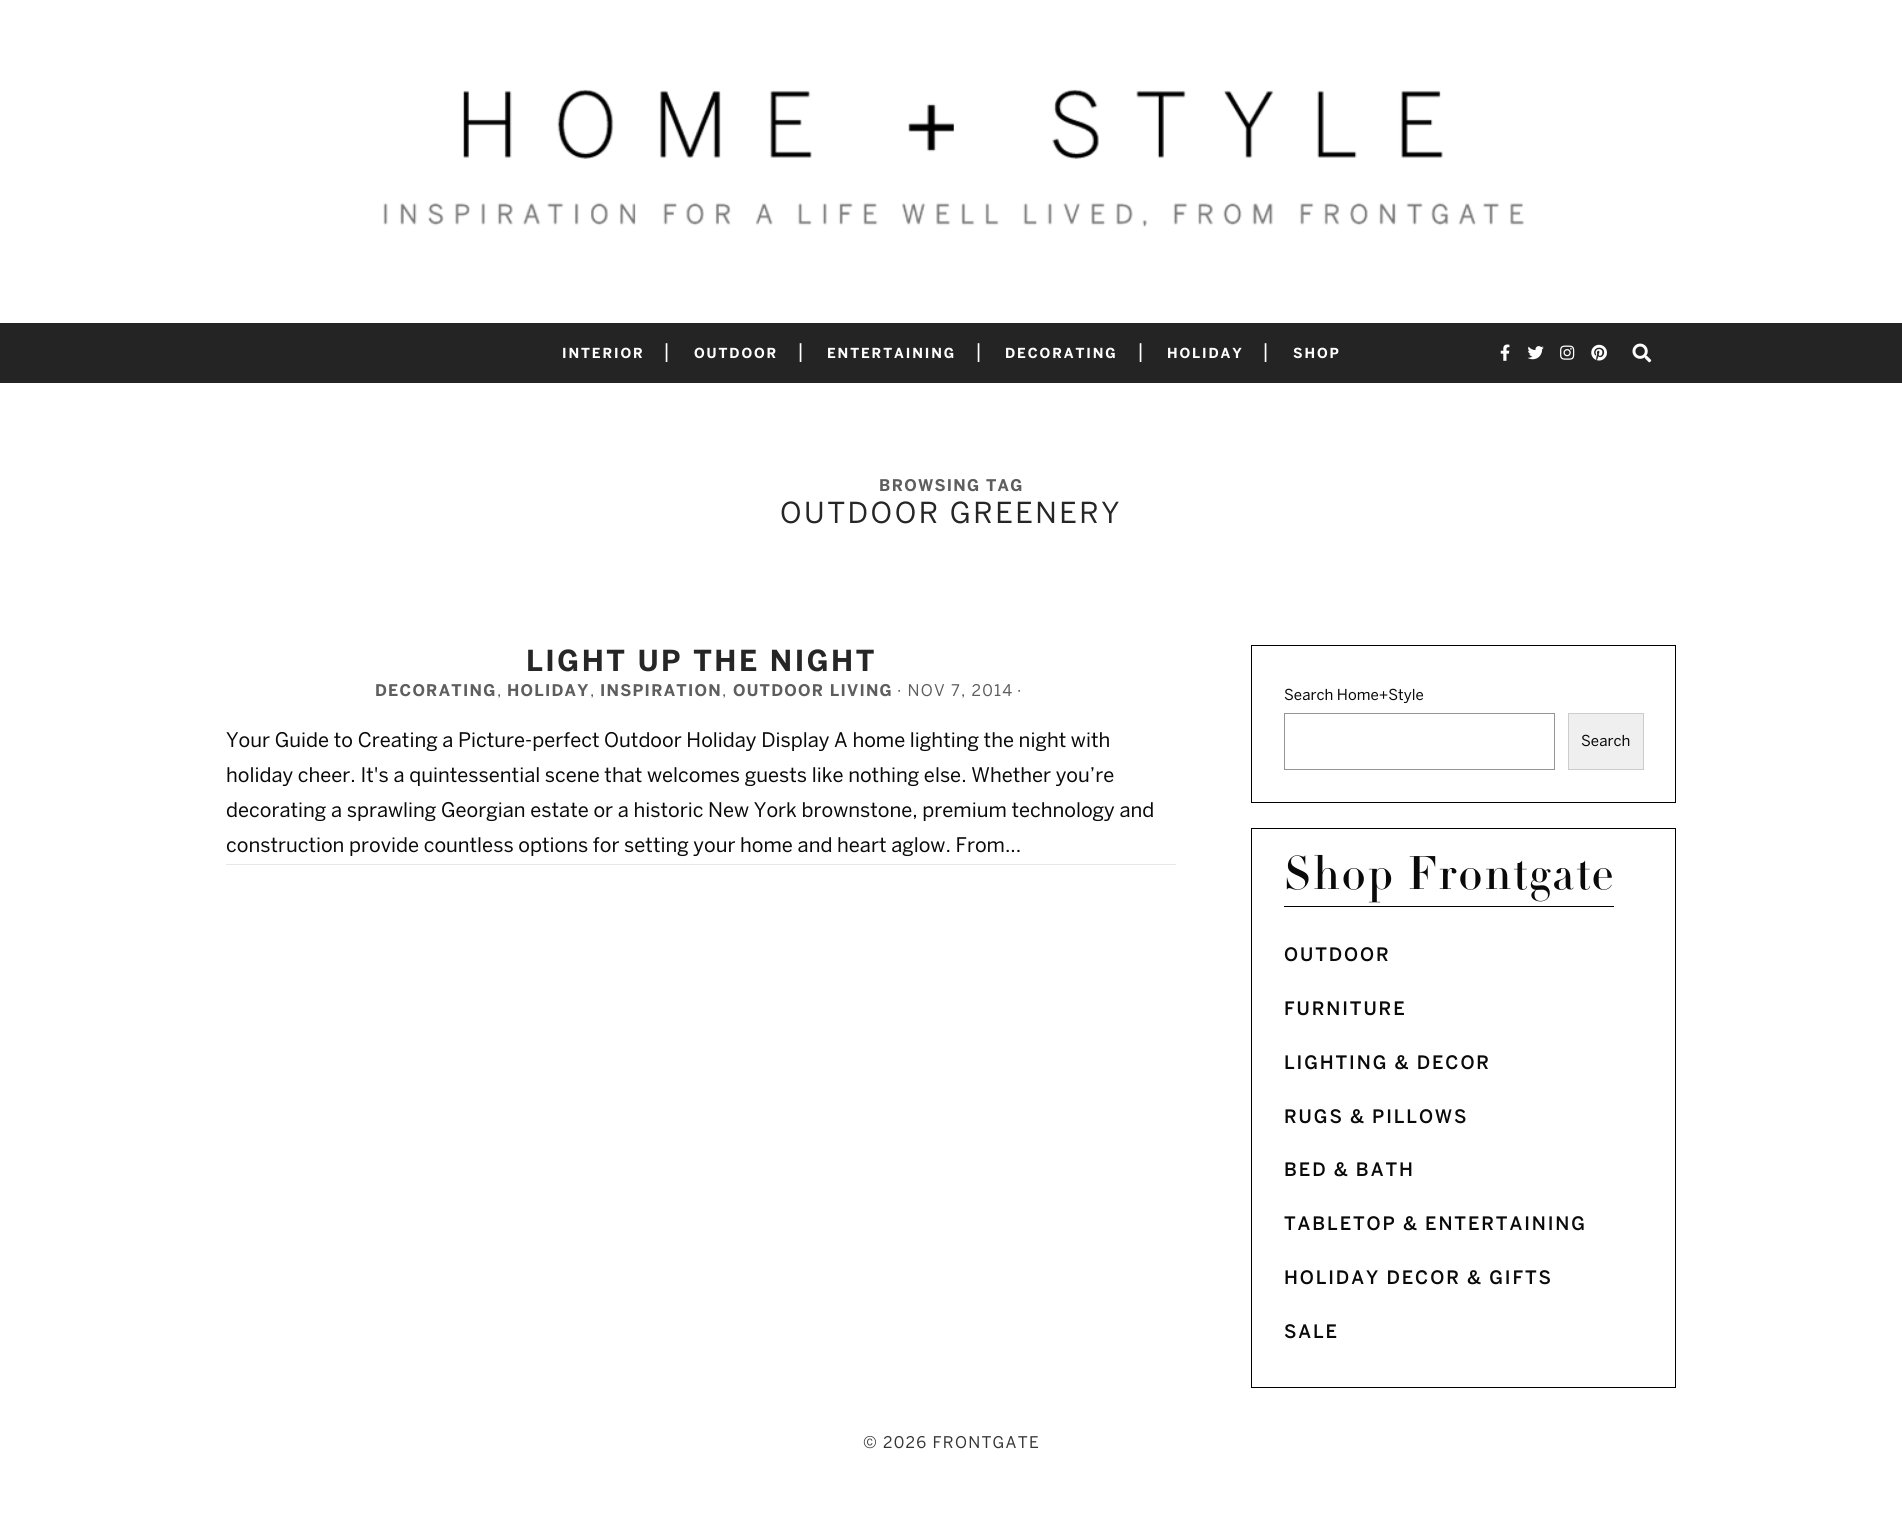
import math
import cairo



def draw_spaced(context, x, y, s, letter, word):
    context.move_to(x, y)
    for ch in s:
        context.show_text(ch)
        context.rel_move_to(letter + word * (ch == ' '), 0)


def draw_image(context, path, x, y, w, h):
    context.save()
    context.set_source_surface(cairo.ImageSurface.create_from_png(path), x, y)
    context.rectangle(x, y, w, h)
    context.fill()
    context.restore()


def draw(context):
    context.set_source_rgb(1, 1, 1)
    context.paint()
    draw_image(context, "images/1.png", 383, 89, 1141, 138)
    context.set_source_rgb(36 / 255, 36 / 255, 36 / 255)
    context.rectangle(0, 323, 1902, 60)
    context.fill()
    draw_image(context, "images/2.png", 1500, 344, 10, 17)
    draw_image(context, "images/3.png", 1527, 346, 17, 14)
    draw_image(context, "images/4.png", 1560, 345, 15, 15)
    draw_image(context, "images/5.png", 1591, 344, 16, 17)
    draw_image(context, "images/6.png", 1632, 343, 20, 20)
    context.set_source_rgb(231 / 255, 231 / 255, 231 / 255)
    context.rectangle(226, 864, 950, 1)
    context.fill()
    context.rectangle(1251.5, 645.5, 424, 157)
    context.set_source_rgb(0, 0, 0)
    context.set_line_width(1)
    context.stroke()
    context.rectangle(1284.5, 713.5, 270, 56)
    context.set_source_rgb(148 / 255, 148 / 255, 148 / 255)
    context.stroke()
    context.set_source_rgb(239 / 255, 239 / 255, 239 / 255)
    context.rectangle(1568.5, 713.5, 75, 56)
    context.fill_preserve()
    context.set_source_rgb(204 / 255, 204 / 255, 204 / 255)
    context.stroke()
    context.rectangle(1251.5, 828.5, 424, 559)
    context.set_source_rgb(0, 0, 0)
    context.stroke()
    context.rectangle(1284, 906, 330, 1)
    context.fill()
    context.select_font_face("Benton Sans", cairo.FontSlant.NORMAL, cairo.FontWeight.BOLD)
    context.set_font_size(13.75)
    context.set_source_rgb(1, 1, 1)
    draw_spaced(context, 562, 358, "INTERIOR", 1.9, 0)
    context.select_font_face("Benton Sans")
    context.set_font_size(20)
    context.move_to(663, 358)
    context.show_text("|")
    context.select_font_face("Benton Sans", cairo.FontSlant.NORMAL, cairo.FontWeight.BOLD)
    context.set_font_size(13.75)
    draw_spaced(context, 694, 358, "OUTDOOR", 1.9, 0)
    context.select_font_face("Benton Sans")
    context.set_font_size(20)
    context.move_to(797, 358)
    context.show_text("|")
    context.select_font_face("Benton Sans", cairo.FontSlant.NORMAL, cairo.FontWeight.BOLD)
    context.set_font_size(13.75)
    draw_spaced(context, 827, 358, "ENTERTAINING", 1.9, 0)
    context.select_font_face("Benton Sans")
    context.set_font_size(20)
    context.move_to(975, 358)
    context.show_text("|")
    context.select_font_face("Benton Sans", cairo.FontSlant.NORMAL, cairo.FontWeight.BOLD)
    context.set_font_size(13.75)
    draw_spaced(context, 1005, 358, "DECORATING", 1.9, 0)
    context.select_font_face("Benton Sans")
    context.set_font_size(20)
    context.move_to(1137, 358)
    context.show_text("|")
    context.select_font_face("Benton Sans", cairo.FontSlant.NORMAL, cairo.FontWeight.BOLD)
    context.set_font_size(13.75)
    draw_spaced(context, 1167, 358, "HOLIDAY", 1.9, 0)
    context.select_font_face("Benton Sans")
    context.set_font_size(20)
    context.move_to(1262, 358)
    context.show_text("|")
    context.select_font_face("Benton Sans", cairo.FontSlant.NORMAL, cairo.FontWeight.BOLD)
    context.set_font_size(13.75)
    draw_spaced(context, 1293, 358, "SHOP", 1.9, 0)
    context.set_font_size(16)
    context.set_source_rgb(94 / 255, 94 / 255, 94 / 255)
    draw_spaced(context, 879, 491, "BROWSING TAG", 1.25, 0)
    context.select_font_face("Benton Sans")
    context.set_font_size(28.75)
    context.set_source_rgb(38 / 255, 38 / 255, 38 / 255)
    draw_spaced(context, 780, 523, "OUTDOOR GREENERY", 2.5, 0)
    context.select_font_face("Benton Sans", cairo.FontSlant.NORMAL, cairo.FontWeight.BOLD)
    draw_spaced(context, 526, 671, "LIGHT UP THE NIGHT", 2.5, 0)
    context.set_font_size(16)
    context.set_source_rgb(94 / 255, 94 / 255, 94 / 255)
    draw_spaced(context, 375, 696, "DECORATING", 1.25, 0)
    context.select_font_face("Benton Sans")
    draw_spaced(context, 497, 696, ",", 1.25, 0)
    context.select_font_face("Benton Sans", cairo.FontSlant.NORMAL, cairo.FontWeight.BOLD)
    draw_spaced(context, 507, 696, "HOLIDAY", 1.25, 0)
    context.select_font_face("Benton Sans")
    draw_spaced(context, 590, 696, ",", 1.25, 0)
    context.select_font_face("Benton Sans", cairo.FontSlant.NORMAL, cairo.FontWeight.BOLD)
    draw_spaced(context, 600, 696, "INSPIRATION", 1.25, 0)
    context.select_font_face("Benton Sans")
    draw_spaced(context, 722, 696, ",", 1.25, 0)
    context.select_font_face("Benton Sans", cairo.FontSlant.NORMAL, cairo.FontWeight.BOLD)
    draw_spaced(context, 733, 696, "OUTDOOR LIVING", 1.25, 0)
    context.select_font_face("Benton Sans")
    draw_spaced(context, 897, 696, "· NOV 7, 2014", 1.25, 0)
    draw_spaced(context, 1017, 696, "·", 1.25, 0)
    context.set_font_size(20)
    context.set_source_rgb(10 / 255, 10 / 255, 10 / 255)
    context.move_to(226, 747)
    context.show_text("Your Guide to Creating a Picture-perfect Outdoor Holiday Display A home lighting the night with")
    context.move_to(226, 782)
    context.show_text("holiday cheer. It's a quintessential scene that welcomes guests like nothing else. Whether you’re")
    context.move_to(226, 817)
    context.show_text("decorating a sprawling Georgian estate or a historic New York brownstone, premium technology and")
    context.move_to(226, 852)
    context.show_text("construction provide countless options for setting your home and heart aglow. From...")
    context.set_font_size(15)
    context.move_to(1284, 700)
    context.show_text("Search Home+Style")
    context.move_to(1581, 746)
    context.show_text("Search")
    context.select_font_face("Didot")
    context.set_font_size(46.25)
    draw_spaced(context, 1284, 889, "Shop Frontgate", 1.25, 0)
    context.select_font_face("Benton Sans Medium")
    context.set_font_size(18.4)
    draw_spaced(context, 1284, 961, "OUTDOOR", 1.9, 0)
    draw_spaced(context, 1284, 1015, "FURNITURE", 1.9, 0)
    draw_spaced(context, 1284, 1069, "LIGHTING & DECOR", 1.9, 0)
    draw_spaced(context, 1284, 1123, "RUGS & PILLOWS", 1.9, 0)
    draw_spaced(context, 1284, 1176, "BED & BATH", 1.9, 0)
    draw_spaced(context, 1284, 1230, "TABLETOP & ENTERTAINING", 1.9, 0)
    draw_spaced(context, 1284, 1284, "HOLIDAY DECOR & GIFTS", 1.9, 0)
    draw_spaced(context, 1284, 1338, "SALE", 1.9, 0)
    context.select_font_face("Benton Sans")
    context.set_font_size(16)
    context.set_source_rgb(53 / 255, 53 / 255, 53 / 255)
    draw_spaced(context, 863, 1448, "© 2026 FRONTGATE", 1.25, 0)


surface = cairo.ImageSurface(cairo.Format.RGB24, 1902, 1531)
context = cairo.Context(surface)
options = cairo.FontOptions()
options.set_hint_metrics(cairo.HintMetrics.OFF)
options.set_hint_style(cairo.HintStyle.NONE)
context.set_font_options(options)
context.set_miter_limit(4)
draw(context)
surface.write_to_png("out.png")
